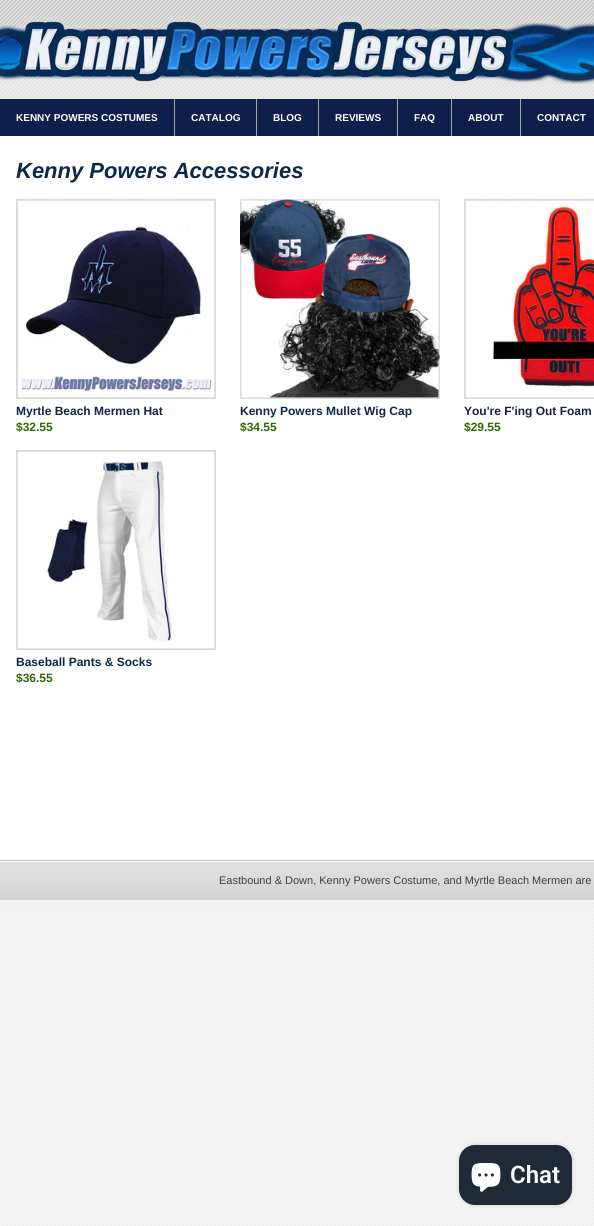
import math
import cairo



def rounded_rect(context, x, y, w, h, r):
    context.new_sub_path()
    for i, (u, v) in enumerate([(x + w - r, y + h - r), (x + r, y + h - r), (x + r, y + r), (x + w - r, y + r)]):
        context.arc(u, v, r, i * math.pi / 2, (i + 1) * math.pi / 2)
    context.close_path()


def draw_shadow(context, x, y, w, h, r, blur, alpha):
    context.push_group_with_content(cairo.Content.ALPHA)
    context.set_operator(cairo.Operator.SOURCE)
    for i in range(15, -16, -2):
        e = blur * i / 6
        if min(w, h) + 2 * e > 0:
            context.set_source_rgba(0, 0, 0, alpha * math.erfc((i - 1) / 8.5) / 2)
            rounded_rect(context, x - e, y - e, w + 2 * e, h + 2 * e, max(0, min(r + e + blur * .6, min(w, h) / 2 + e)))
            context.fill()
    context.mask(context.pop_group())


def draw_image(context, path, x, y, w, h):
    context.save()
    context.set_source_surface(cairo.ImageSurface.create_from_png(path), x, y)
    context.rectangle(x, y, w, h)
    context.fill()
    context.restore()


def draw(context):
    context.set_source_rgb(1, 1, 1)
    context.paint()
    draw_image(context, "images/1.png", 0, 0, 594, 1226)
    draw_image(context, "images/2.png", 0, 21, 594, 63)
    context.set_source_rgb(13 / 255, 31 / 255, 74 / 255)
    context.rectangle(0, 99, 594, 37)
    context.fill()
    context.set_source_rgb(167 / 255, 167 / 255, 167 / 255)
    context.rectangle(174, 99, 1, 37)
    context.fill()
    context.rectangle(256, 99, 1, 37)
    context.fill()
    context.rectangle(318, 99, 1, 37)
    context.fill()
    context.rectangle(397, 99, 1, 37)
    context.fill()
    context.rectangle(451, 99, 1, 37)
    context.fill()
    context.rectangle(520, 99, 1, 37)
    context.fill()
    context.set_source_rgb(1, 1, 1)
    context.rectangle(0, 136, 594, 723)
    context.fill()
    draw_image(context, "images/3.png", 16, 199, 200, 200)
    draw_image(context, "images/4.png", 240, 199, 200, 200)
    draw_image(context, "images/5.png", 464, 199, 130, 200)
    draw_image(context, "images/6.png", 16, 450, 200, 200)
    draw_image(context, "images/7.png", 0, 859, 594, 41)
    context.set_source_rgb(0, 0, 0)
    draw_shadow(context, 459, 1145, 113, 60, 16, 2.5, 0.15)
    context.set_source_rgb(32 / 255, 42 / 255, 54 / 255)
    rounded_rect(context, 459, 1145, 113, 60, 16)
    context.fill()
    draw_image(context, "images/8.png", 471, 1163, 30, 29)
    context.select_font_face("Liberation Sans", cairo.FontSlant.NORMAL, cairo.FontWeight.BOLD)
    context.set_font_size(10)
    context.set_source_rgb(1, 1, 1)
    context.move_to(16, 121)
    context.show_text("KENNY POWERS COSTUMES")
    context.move_to(191, 121)
    context.show_text("CATALOG")
    context.move_to(273, 121)
    context.show_text("BLOG")
    context.move_to(335, 121)
    context.show_text("REVIEWS")
    context.move_to(414, 121)
    context.show_text("FAQ")
    context.move_to(468, 121)
    context.show_text("ABOUT")
    context.move_to(537, 121)
    context.show_text("CONTACT")
    context.select_font_face("Liberation Sans", cairo.FontSlant.ITALIC, cairo.FontWeight.BOLD)
    context.set_font_size(22)
    context.set_source_rgb(14 / 255, 40 / 255, 73 / 255)
    context.move_to(16, 178)
    context.show_text("Kenny Powers Accessories")
    context.select_font_face("Liberation Sans", cairo.FontSlant.NORMAL, cairo.FontWeight.BOLD)
    context.set_font_size(12)
    context.move_to(16, 415)
    context.show_text("Myrtle Beach Mermen Hat")
    context.set_source_rgb(46 / 255, 107 / 255, 1 / 255)
    context.move_to(16, 431)
    context.show_text("$32.55")
    context.set_source_rgb(14 / 255, 40 / 255, 73 / 255)
    context.move_to(240, 415)
    context.show_text("Kenny Powers Mullet Wig Cap")
    context.set_source_rgb(46 / 255, 107 / 255, 1 / 255)
    context.move_to(240, 431)
    context.show_text("$34.55")
    context.set_source_rgb(14 / 255, 40 / 255, 73 / 255)
    context.move_to(464, 415)
    context.show_text("You're F'ing Out Foam")
    context.set_source_rgb(46 / 255, 107 / 255, 1 / 255)
    context.move_to(464, 431)
    context.show_text("$29.55")
    context.set_source_rgb(14 / 255, 40 / 255, 73 / 255)
    context.move_to(16, 666)
    context.show_text("Baseball Pants & Socks")
    context.set_source_rgb(46 / 255, 107 / 255, 1 / 255)
    context.move_to(16, 682)
    context.show_text("$36.55")
    context.select_font_face("Liberation Sans")
    context.set_font_size(11)
    context.set_source_rgb(63 / 255, 63 / 255, 63 / 255)
    context.move_to(219, 884)
    context.show_text("Eastbound & Down, Kenny Powers Costume, and Myrtle Beach Mermen are")
    context.select_font_face("Roboto SemiBold")
    context.set_font_size(24)
    context.set_source_rgb(1, 1, 1)
    context.move_to(510, 1183)
    context.show_text("Chat")


surface = cairo.ImageSurface(cairo.Format.RGB24, 594, 1226)
context = cairo.Context(surface)
options = cairo.FontOptions()
options.set_hint_metrics(cairo.HintMetrics.OFF)
options.set_hint_style(cairo.HintStyle.NONE)
context.set_font_options(options)
context.set_miter_limit(4)
draw(context)
surface.write_to_png("out.png")
